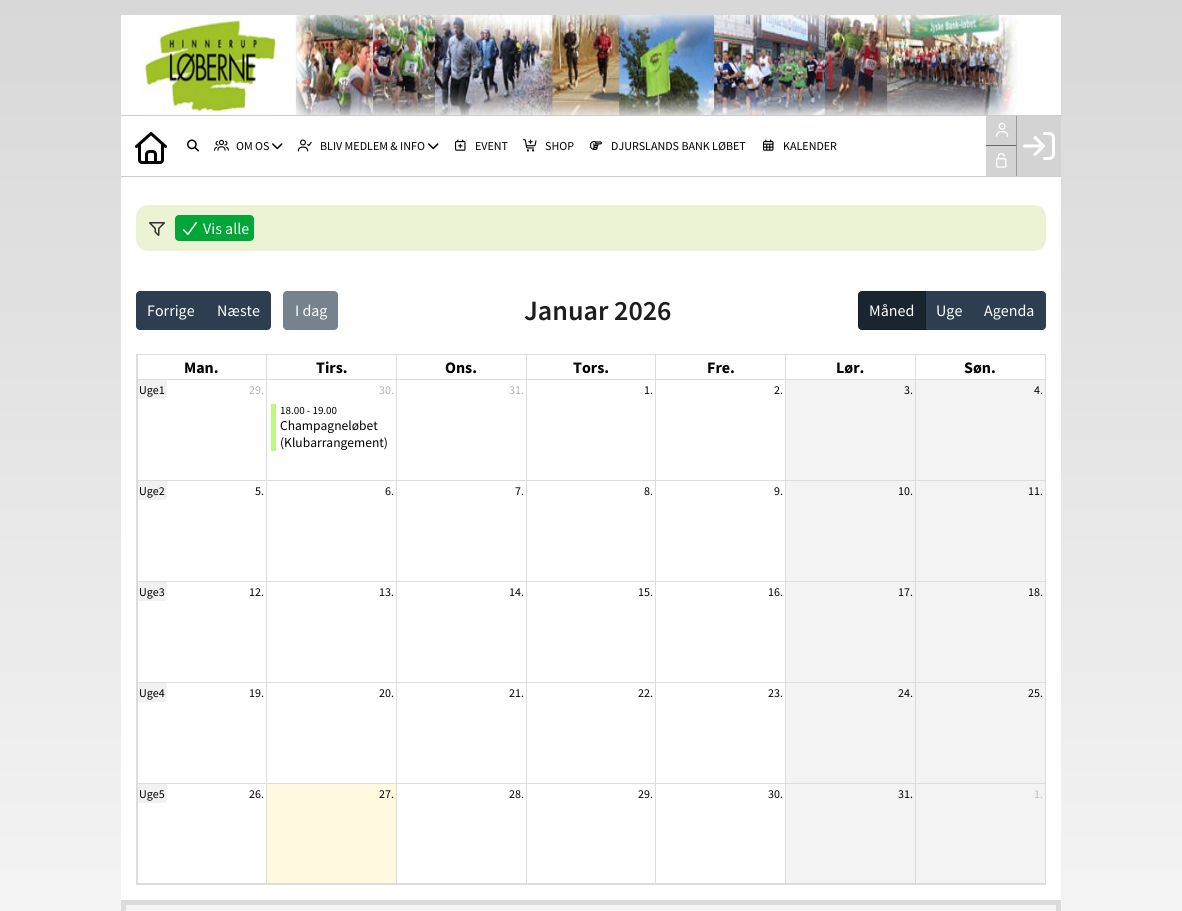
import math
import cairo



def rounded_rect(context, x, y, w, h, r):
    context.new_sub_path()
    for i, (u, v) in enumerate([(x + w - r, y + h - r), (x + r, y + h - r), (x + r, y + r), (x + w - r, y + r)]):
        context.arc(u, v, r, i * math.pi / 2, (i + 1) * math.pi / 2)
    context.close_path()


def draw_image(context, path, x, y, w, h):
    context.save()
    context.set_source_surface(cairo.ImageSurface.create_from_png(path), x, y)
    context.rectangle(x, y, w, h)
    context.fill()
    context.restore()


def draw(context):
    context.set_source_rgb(1, 1, 1)
    context.paint()
    gradient = cairo.LinearGradient(591, 0, 591, 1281)
    gradient.add_color_stop_rgba(0, 216 / 255, 216 / 255, 216 / 255, 1)
    gradient.add_color_stop_rgba(1, 1, 1, 1, 1)
    context.set_source(gradient)
    context.rectangle(0, 0, 1182, 911)
    context.fill()
    draw_image(context, "images/1.png", 121, 15, 940, 100)
    context.set_source_rgb(204 / 255, 204 / 255, 204 / 255)
    context.rectangle(121, 115, 940, 1)
    context.fill()
    context.set_source_rgb(1, 1, 1)
    context.rectangle(121, 116, 940, 784)
    context.fill()
    context.set_source_rgb(204 / 255, 204 / 255, 204 / 255)
    context.rectangle(121, 176, 940, 1)
    context.fill()
    draw_image(context, "images/2.png", 135, 132, 32, 32)
    draw_image(context, "images/3.png", 187, 139, 12, 13)
    draw_image(context, "images/4.png", 214, 139, 15, 12)
    draw_image(context, "images/5.png", 272, 143, 11, 7)
    draw_image(context, "images/6.png", 297, 139, 15, 13)
    draw_image(context, "images/5.png", 428, 143, 11, 7)
    draw_image(context, "images/7.png", 455, 139, 11, 12)
    draw_image(context, "images/8.png", 523, 139, 14, 13)
    draw_image(context, "images/9.png", 590, 141, 12, 9)
    draw_image(context, "images/10.png", 763, 139, 11, 12)
    context.set_source_rgb(211 / 255, 211 / 255, 211 / 255)
    context.rectangle(986, 116, 30, 29)
    context.fill()
    context.set_source_rgb(102 / 255, 102 / 255, 102 / 255)
    context.rectangle(986, 145, 30, 1)
    context.fill()
    draw_image(context, "images/11.png", 996, 122, 13, 15)
    context.set_source_rgb(211 / 255, 211 / 255, 211 / 255)
    context.rectangle(986, 146, 30, 30)
    context.fill()
    draw_image(context, "images/12.png", 996, 153, 11, 15)
    context.rectangle(1017, 116, 44, 60)
    context.fill()
    context.set_source_rgb(153 / 255, 153 / 255, 153 / 255)
    context.rectangle(1016, 116, 1, 60)
    context.fill()
    draw_image(context, "images/13.png", 1023, 132, 32, 28)
    context.set_source_rgb(243 / 255, 243 / 255, 243 / 255)
    context.rectangle(786, 784, 259, 99)
    context.fill()
    context.rectangle(786, 683, 259, 100)
    context.fill()
    context.rectangle(786, 582, 259, 100)
    context.fill()
    context.rectangle(786, 481, 259, 100)
    context.fill()
    context.rectangle(786, 380, 259, 100)
    context.fill()
    context.set_source_rgb(236 / 255, 243 / 255, 212 / 255)
    rounded_rect(context, 136, 205, 910, 46, 12)
    context.fill()
    draw_image(context, "images/14.png", 149, 222, 16, 14)
    context.set_source_rgb(0, 166 / 255, 55 / 255)
    rounded_rect(context, 175, 215, 79, 26, 4)
    context.fill()
    draw_image(context, "images/15.png", 183, 222, 14, 13)
    context.set_source_rgb(44 / 255, 62 / 255, 80 / 255)
    context.new_path()
    context.move_to(140, 291.5)
    context.line_to(205.5, 291.5)
    context.line_to(205.5, 329.5)
    context.line_to(140, 329.5)
    context.curve_to(138, 329.5, 136.5, 328, 136.5, 326)
    context.line_to(136.5, 295)
    context.curve_to(136.5, 293, 138, 291.5, 140, 291.5)
    context.close_path()
    context.fill_preserve()
    context.set_line_width(1)
    context.stroke()
    context.new_path()
    context.move_to(205.5, 291.5)
    context.line_to(267, 291.5)
    context.curve_to(269, 291.5, 270.5, 293, 270.5, 295)
    context.line_to(270.5, 326)
    context.curve_to(270.5, 328, 269, 329.5, 267, 329.5)
    context.line_to(205.5, 329.5)
    context.close_path()
    context.fill_preserve()
    context.stroke()
    context.set_source_rgb(118 / 255, 130 / 255, 141 / 255)
    rounded_rect(context, 283.5, 291.5, 54, 38, 3.5)
    context.fill_preserve()
    context.stroke()
    context.set_source_rgb(26 / 255, 37 / 255, 47 / 255)
    context.new_path()
    context.move_to(862, 291.5)
    context.line_to(925.5, 291.5)
    context.line_to(925.5, 329.5)
    context.line_to(862, 329.5)
    context.curve_to(860, 329.5, 858.5, 328, 858.5, 326)
    context.line_to(858.5, 295)
    context.curve_to(858.5, 293, 860, 291.5, 862, 291.5)
    context.close_path()
    context.fill_preserve()
    context.set_source_rgb(21 / 255, 30 / 255, 39 / 255)
    context.stroke()
    context.set_source_rgb(44 / 255, 62 / 255, 80 / 255)
    context.rectangle(926, 291, 47, 39)
    context.fill()
    context.new_path()
    context.move_to(973.5, 291.5)
    context.line_to(1042, 291.5)
    context.curve_to(1044, 291.5, 1045.5, 293, 1045.5, 295)
    context.line_to(1045.5, 326)
    context.curve_to(1045.5, 328, 1044, 329.5, 1042, 329.5)
    context.line_to(973.5, 329.5)
    context.close_path()
    context.fill_preserve()
    context.stroke()
    context.set_source_rgb(221 / 255, 221 / 255, 221 / 255)
    context.rectangle(136, 354, 910, 1)
    context.fill()
    context.rectangle(136, 354, 1, 531)
    context.fill()
    context.rectangle(1045, 355, 1, 530)
    context.fill()
    context.rectangle(915, 379, 130, 1)
    context.fill()
    context.rectangle(915, 355, 1, 25)
    context.fill()
    context.rectangle(785, 379, 131, 1)
    context.fill()
    context.rectangle(785, 355, 1, 25)
    context.fill()
    context.rectangle(655, 379, 131, 1)
    context.fill()
    context.rectangle(655, 355, 1, 25)
    context.fill()
    context.rectangle(526, 379, 130, 1)
    context.fill()
    context.rectangle(526, 355, 1, 25)
    context.fill()
    context.rectangle(396, 379, 131, 1)
    context.fill()
    context.rectangle(396, 355, 1, 25)
    context.fill()
    context.rectangle(266, 379, 131, 1)
    context.fill()
    context.rectangle(266, 355, 1, 25)
    context.fill()
    context.rectangle(137, 379, 130, 1)
    context.fill()
    context.rectangle(137, 355, 1, 25)
    context.fill()
    context.rectangle(137, 884, 909, 1)
    context.fill()
    context.rectangle(785, 480, 260, 1)
    context.fill()
    context.rectangle(785, 581, 260, 1)
    context.fill()
    context.rectangle(785, 682, 260, 1)
    context.fill()
    context.rectangle(785, 783, 260, 1)
    context.fill()
    context.rectangle(785, 783, 1, 101)
    context.fill()
    context.rectangle(655, 783, 131, 1)
    context.fill()
    context.rectangle(785, 682, 1, 102)
    context.fill()
    context.rectangle(655, 682, 131, 1)
    context.fill()
    context.rectangle(785, 581, 1, 102)
    context.fill()
    context.rectangle(655, 581, 131, 1)
    context.fill()
    context.rectangle(785, 480, 1, 102)
    context.fill()
    context.rectangle(655, 480, 131, 1)
    context.fill()
    context.rectangle(655, 883, 131, 1)
    context.fill()
    context.rectangle(655, 783, 1, 101)
    context.fill()
    context.rectangle(526, 783, 130, 1)
    context.fill()
    context.rectangle(655, 682, 1, 102)
    context.fill()
    context.rectangle(526, 682, 130, 1)
    context.fill()
    context.rectangle(655, 581, 1, 102)
    context.fill()
    context.rectangle(526, 581, 130, 1)
    context.fill()
    context.rectangle(655, 480, 1, 102)
    context.fill()
    context.rectangle(526, 480, 130, 1)
    context.fill()
    context.rectangle(526, 883, 130, 1)
    context.fill()
    context.rectangle(526, 783, 1, 101)
    context.fill()
    context.rectangle(396, 783, 131, 1)
    context.fill()
    context.rectangle(526, 682, 1, 102)
    context.fill()
    context.rectangle(396, 682, 131, 1)
    context.fill()
    context.rectangle(526, 581, 1, 102)
    context.fill()
    context.rectangle(396, 581, 131, 1)
    context.fill()
    context.rectangle(526, 480, 1, 102)
    context.fill()
    context.rectangle(396, 480, 131, 1)
    context.fill()
    context.rectangle(396, 883, 131, 1)
    context.fill()
    context.rectangle(396, 783, 1, 101)
    context.fill()
    context.rectangle(266, 783, 131, 1)
    context.fill()
    context.rectangle(396, 682, 1, 102)
    context.fill()
    context.rectangle(266, 682, 131, 1)
    context.fill()
    context.rectangle(396, 581, 1, 102)
    context.fill()
    context.rectangle(266, 581, 131, 1)
    context.fill()
    context.rectangle(396, 480, 1, 102)
    context.fill()
    context.rectangle(266, 480, 131, 1)
    context.fill()
    context.rectangle(266, 883, 131, 1)
    context.fill()
    context.rectangle(266, 783, 1, 101)
    context.fill()
    context.rectangle(137, 783, 130, 1)
    context.fill()
    context.rectangle(266, 682, 1, 102)
    context.fill()
    context.rectangle(137, 682, 130, 1)
    context.fill()
    context.rectangle(266, 581, 1, 102)
    context.fill()
    context.rectangle(137, 581, 130, 1)
    context.fill()
    context.rectangle(266, 480, 1, 102)
    context.fill()
    context.rectangle(137, 480, 130, 1)
    context.fill()
    context.rectangle(137, 883, 130, 1)
    context.fill()
    context.rectangle(137, 783, 1, 101)
    context.fill()
    context.rectangle(137, 682, 1, 102)
    context.fill()
    context.rectangle(137, 581, 1, 102)
    context.fill()
    context.rectangle(137, 380, 1, 202)
    context.fill()
    context.set_source_rgba(209 / 255, 209 / 255, 209 / 255, 0.3)
    context.new_path()
    context.move_to(137, 380)
    context.line_to(167, 380)
    context.line_to(167, 396)
    context.curve_to(167, 397.5, 165.5, 399, 164, 399)
    context.line_to(137, 399)
    context.close_path()
    context.fill()
    context.set_source_rgb(221 / 255, 221 / 255, 221 / 255)
    context.rectangle(266, 380, 1, 101)
    context.fill()
    context.set_source_rgb(190 / 255, 247 / 255, 129 / 255)
    context.rectangle(271, 404, 5, 47)
    context.fill()
    context.set_source_rgb(221 / 255, 221 / 255, 221 / 255)
    context.rectangle(396, 380, 1, 101)
    context.fill()
    context.rectangle(526, 380, 1, 101)
    context.fill()
    context.rectangle(655, 380, 1, 101)
    context.fill()
    context.rectangle(785, 380, 1, 101)
    context.fill()
    context.set_source_rgb(219 / 255, 219 / 255, 219 / 255)
    context.rectangle(915, 380, 1, 100)
    context.fill()
    context.set_source_rgba(209 / 255, 209 / 255, 209 / 255, 0.3)
    context.new_path()
    context.move_to(137, 481)
    context.line_to(167, 481)
    context.line_to(167, 497)
    context.curve_to(167, 498.5, 165.5, 500, 164, 500)
    context.line_to(137, 500)
    context.close_path()
    context.fill()
    context.set_source_rgb(219 / 255, 219 / 255, 219 / 255)
    context.rectangle(915, 481, 1, 100)
    context.fill()
    context.set_source_rgba(209 / 255, 209 / 255, 209 / 255, 0.3)
    context.new_path()
    context.move_to(137, 582)
    context.line_to(167, 582)
    context.line_to(167, 598)
    context.curve_to(167, 599.5, 165.5, 601, 164, 601)
    context.line_to(137, 601)
    context.close_path()
    context.fill()
    context.set_source_rgb(219 / 255, 219 / 255, 219 / 255)
    context.rectangle(915, 582, 1, 100)
    context.fill()
    context.set_source_rgba(209 / 255, 209 / 255, 209 / 255, 0.3)
    context.new_path()
    context.move_to(137, 683)
    context.line_to(167, 683)
    context.line_to(167, 699)
    context.curve_to(167, 700.5, 165.5, 702, 164, 702)
    context.line_to(137, 702)
    context.close_path()
    context.fill()
    context.set_source_rgb(219 / 255, 219 / 255, 219 / 255)
    context.rectangle(915, 683, 1, 100)
    context.fill()
    context.set_source_rgba(209 / 255, 209 / 255, 209 / 255, 0.3)
    context.new_path()
    context.move_to(137, 784)
    context.line_to(167, 784)
    context.line_to(167, 800)
    context.curve_to(167, 801.5, 165.5, 803, 164, 803)
    context.line_to(137, 803)
    context.close_path()
    context.fill()
    context.set_source_rgb(1, 250 / 255, 223 / 255)
    context.rectangle(267, 784, 129, 99)
    context.fill()
    context.set_source_rgb(219 / 255, 219 / 255, 219 / 255)
    context.rectangle(915, 883, 130, 1)
    context.fill()
    context.rectangle(915, 784, 1, 100)
    context.fill()
    context.rectangle(786, 883, 130, 1)
    context.fill()
    context.rectangle(123.5, 902.5, 935, 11)
    context.set_line_width(5)
    context.stroke()
    context.select_font_face("Source Sans Pro")
    context.set_font_size(12)
    context.set_source_rgb(0, 0, 0)
    context.move_to(236, 150)
    context.show_text("OM OS")
    context.move_to(320, 150)
    context.show_text("BLIV MEDLEM & INFO")
    context.move_to(475, 150)
    context.show_text("EVENT")
    context.move_to(545, 150)
    context.show_text("SHOP")
    context.move_to(611, 150)
    context.show_text("DJURSLANDS BANK LØBET")
    context.move_to(783, 150)
    context.show_text("KALENDER")
    context.set_font_size(16)
    context.set_source_rgb(1, 1, 1)
    context.move_to(203, 234)
    context.show_text("Vis alle")
    context.move_to(147, 316)
    context.show_text("Forrige")
    context.move_to(217, 316)
    context.show_text("Næste")
    context.move_to(295, 316)
    context.show_text("I dag")
    context.select_font_face("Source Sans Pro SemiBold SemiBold")
    context.set_font_size(28)
    context.set_source_rgb(29 / 255, 29 / 255, 29 / 255)
    context.move_to(524, 320)
    context.show_text("Januar 2026")
    context.select_font_face("Source Sans Pro")
    context.set_font_size(16)
    context.set_source_rgb(1, 1, 1)
    context.move_to(869, 316)
    context.show_text("Måned")
    context.move_to(936, 316)
    context.show_text("Uge")
    context.move_to(984, 316)
    context.show_text("Agenda")
    context.select_font_face("Source Sans Pro", cairo.FontSlant.NORMAL, cairo.FontWeight.BOLD)
    context.set_source_rgb(0, 0, 0)
    context.move_to(184, 373)
    context.show_text("Man.")
    context.move_to(316, 373)
    context.show_text("Tirs.")
    context.move_to(445, 373)
    context.show_text("Ons.")
    context.move_to(573, 373)
    context.show_text("Tors.")
    context.move_to(707, 373)
    context.show_text("Fre.")
    context.move_to(836, 373)
    context.show_text("Lør.")
    context.move_to(964, 373)
    context.show_text("Søn.")
    context.select_font_face("Source Sans Pro")
    context.set_font_size(12)
    context.move_to(139, 394)
    context.show_text("Uge1")
    context.set_source_rgb(179 / 255, 179 / 255, 179 / 255)
    context.move_to(249, 394)
    context.show_text("29.")
    context.move_to(379, 394)
    context.show_text("30.")
    context.set_font_size(11)
    context.set_source_rgb(0, 0, 0)
    context.move_to(280, 414)
    context.show_text("18.00 - 19.00")
    context.set_font_size(13.5)
    context.move_to(280, 430)
    context.show_text("Champagneløbet")
    context.move_to(280, 447)
    context.show_text("(Klubarrangement)")
    context.set_font_size(12)
    context.set_source_rgb(179 / 255, 179 / 255, 179 / 255)
    context.move_to(509, 394)
    context.show_text("31.")
    context.set_source_rgb(0, 0, 0)
    context.move_to(644, 394)
    context.show_text("1.")
    context.move_to(774, 394)
    context.show_text("2.")
    context.move_to(904, 394)
    context.show_text("3.")
    context.move_to(1034, 394)
    context.show_text("4.")
    context.move_to(139, 495)
    context.show_text("Uge2")
    context.move_to(255, 495)
    context.show_text("5.")
    context.move_to(385, 495)
    context.show_text("6.")
    context.move_to(515, 495)
    context.show_text("7.")
    context.move_to(644, 495)
    context.show_text("8.")
    context.move_to(774, 495)
    context.show_text("9.")
    context.move_to(898, 495)
    context.show_text("10.")
    context.move_to(1028, 495)
    context.show_text("11.")
    context.move_to(139, 596)
    context.show_text("Uge3")
    context.move_to(249, 596)
    context.show_text("12.")
    context.move_to(379, 596)
    context.show_text("13.")
    context.move_to(509, 596)
    context.show_text("14.")
    context.move_to(638, 596)
    context.show_text("15.")
    context.move_to(768, 596)
    context.show_text("16.")
    context.move_to(898, 596)
    context.show_text("17.")
    context.move_to(1028, 596)
    context.show_text("18.")
    context.move_to(139, 697)
    context.show_text("Uge4")
    context.move_to(249, 697)
    context.show_text("19.")
    context.move_to(379, 697)
    context.show_text("20.")
    context.move_to(509, 697)
    context.show_text("21.")
    context.move_to(638, 697)
    context.show_text("22.")
    context.move_to(768, 697)
    context.show_text("23.")
    context.move_to(898, 697)
    context.show_text("24.")
    context.move_to(1028, 697)
    context.show_text("25.")
    context.move_to(139, 798)
    context.show_text("Uge5")
    context.move_to(249, 798)
    context.show_text("26.")
    context.move_to(379, 798)
    context.show_text("27.")
    context.move_to(509, 798)
    context.show_text("28.")
    context.move_to(638, 798)
    context.show_text("29.")
    context.move_to(768, 798)
    context.show_text("30.")
    context.move_to(898, 798)
    context.show_text("31.")
    context.set_source_rgb(190 / 255, 190 / 255, 190 / 255)
    context.move_to(1034, 798)
    context.show_text("1.")


surface = cairo.ImageSurface(cairo.Format.RGB24, 1182, 911)
context = cairo.Context(surface)
options = cairo.FontOptions()
options.set_hint_metrics(cairo.HintMetrics.OFF)
options.set_hint_style(cairo.HintStyle.NONE)
context.set_font_options(options)
context.set_miter_limit(4)
draw(context)
surface.write_to_png("out.png")
